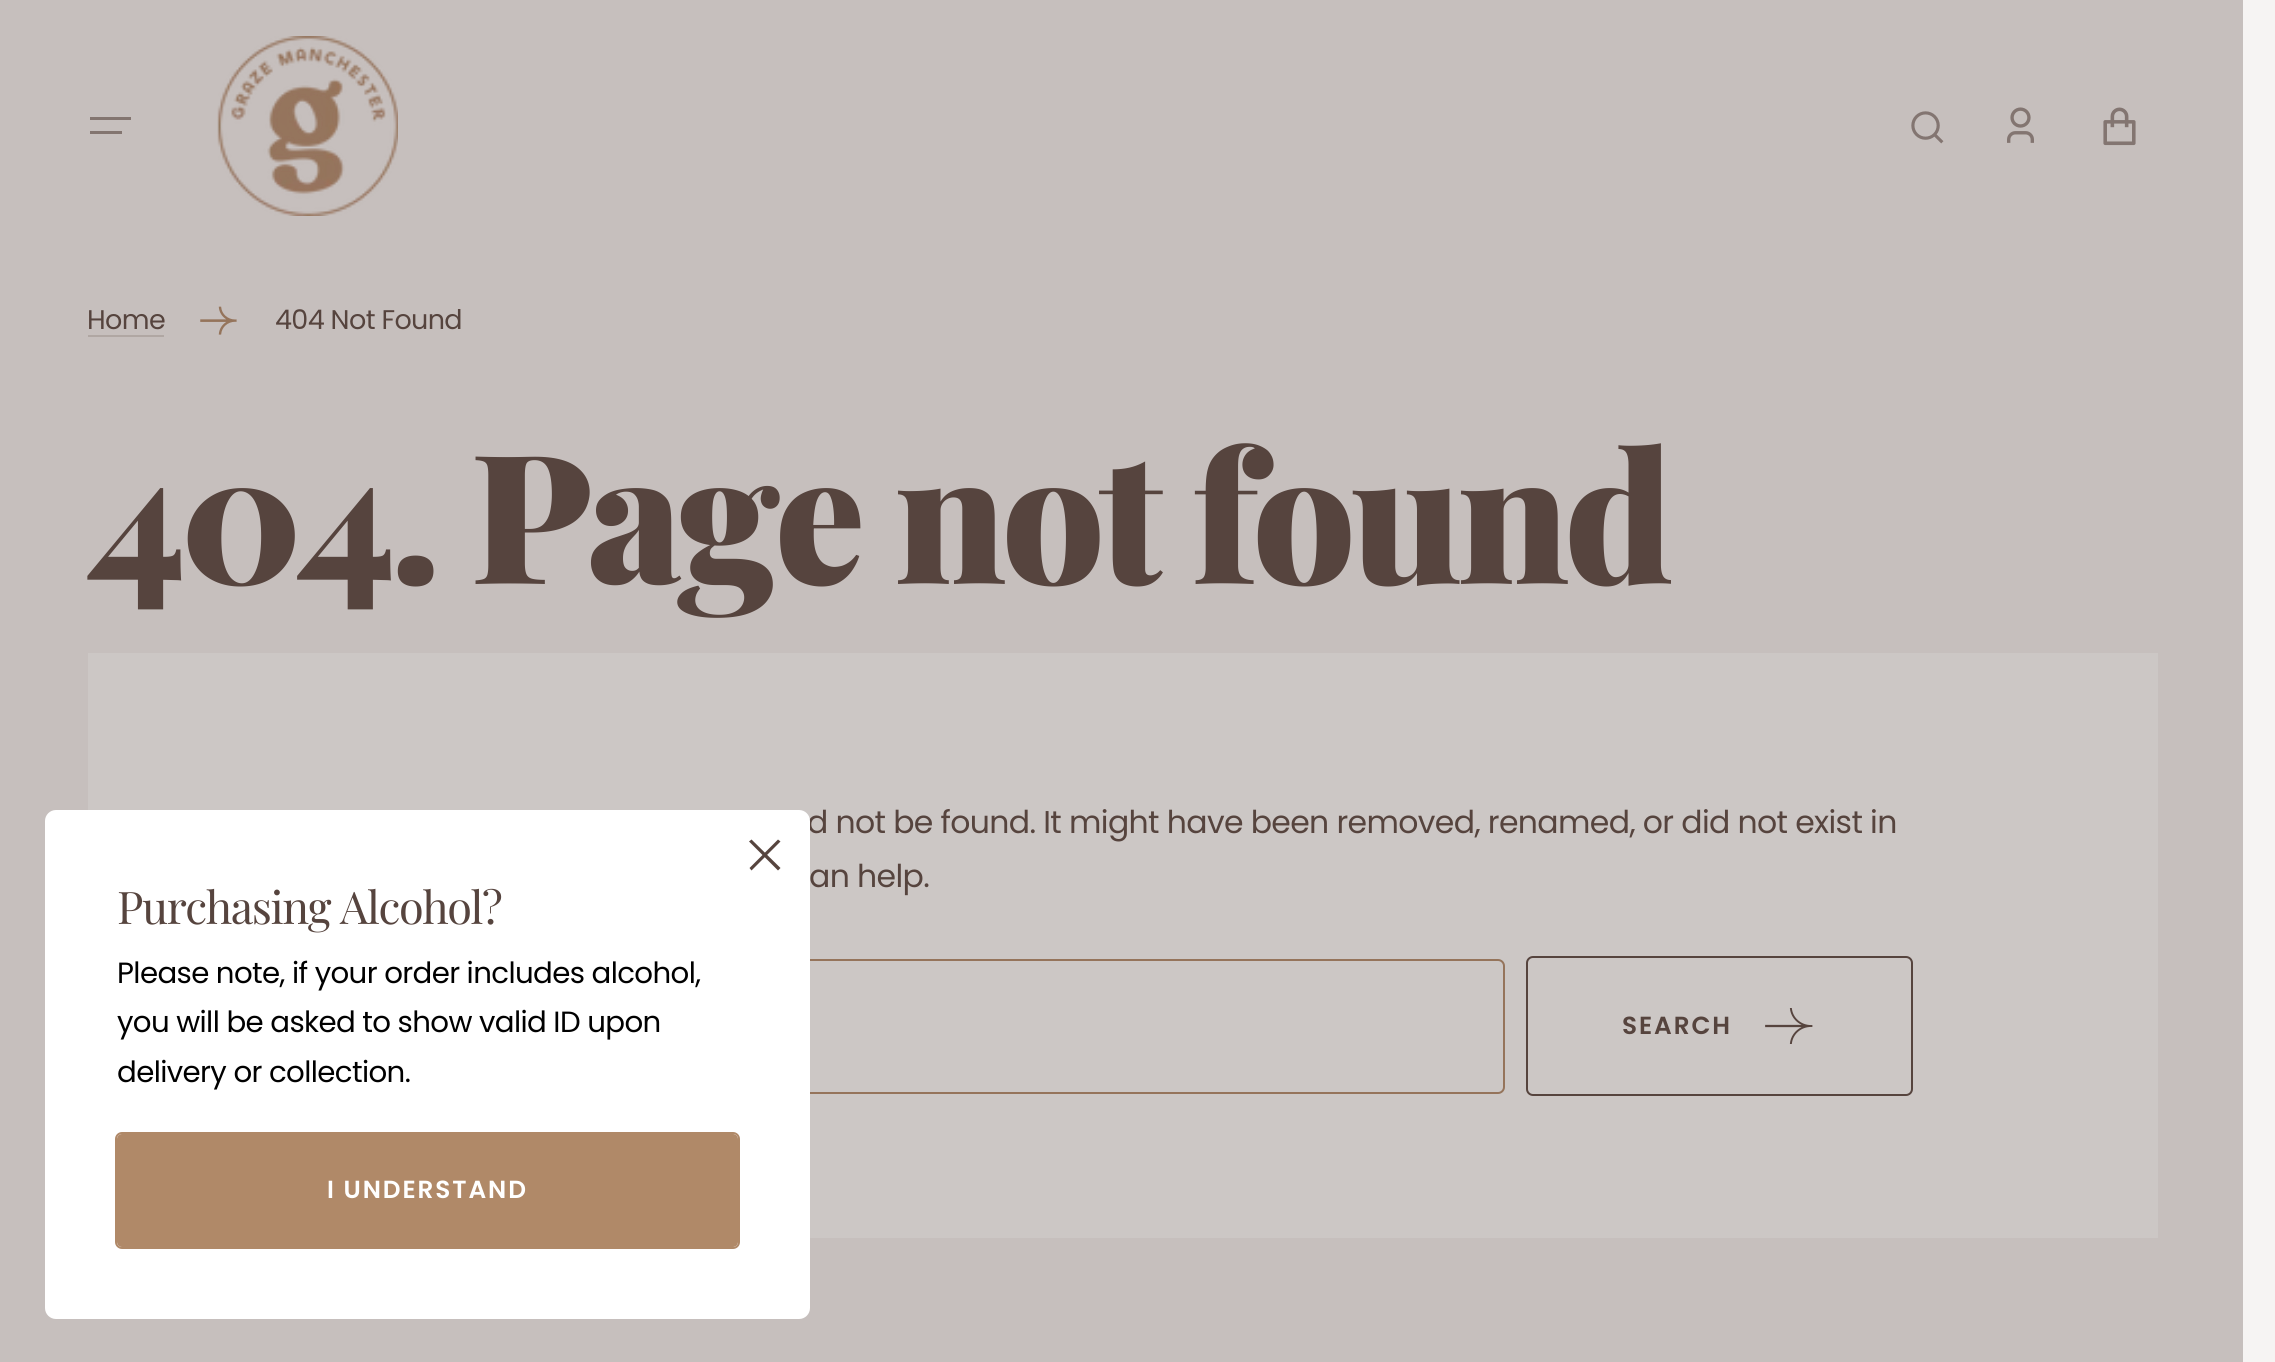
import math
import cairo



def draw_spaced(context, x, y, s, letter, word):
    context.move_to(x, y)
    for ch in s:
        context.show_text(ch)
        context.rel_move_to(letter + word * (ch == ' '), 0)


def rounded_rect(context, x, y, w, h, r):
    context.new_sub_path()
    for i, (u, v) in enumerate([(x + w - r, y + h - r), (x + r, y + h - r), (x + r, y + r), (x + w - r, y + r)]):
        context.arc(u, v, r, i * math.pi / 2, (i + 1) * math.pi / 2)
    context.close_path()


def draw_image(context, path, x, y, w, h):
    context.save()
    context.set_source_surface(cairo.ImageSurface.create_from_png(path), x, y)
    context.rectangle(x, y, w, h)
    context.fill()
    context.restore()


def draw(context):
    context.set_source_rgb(246 / 255, 244 / 255, 243 / 255)
    context.paint()
    context.set_source_rgb(198 / 255, 191 / 255, 189 / 255)
    context.rectangle(0, 0, 2243, 1362)
    context.fill()
    context.set_source_rgb(131 / 255, 117 / 255, 112 / 255)
    context.rectangle(90, 117, 41, 3)
    context.fill()
    context.rectangle(90, 131, 32, 3)
    context.fill()
    draw_image(context, "images/1.png", 217, 36, 181, 180)
    draw_image(context, "images/2.png", 1911, 111, 33, 33)
    draw_image(context, "images/3.png", 2007, 107, 27, 36)
    draw_image(context, "images/4.png", 2103, 107, 33, 39)
    context.set_source_rgb(176 / 255, 167 / 255, 163 / 255)
    context.rectangle(88, 335, 76, 2)
    context.fill()
    draw_image(context, "images/5.png", 200, 306, 37, 29)
    context.set_source_rgb(204 / 255, 199 / 255, 197 / 255)
    context.rectangle(88, 653, 2070, 585)
    context.fill()
    rounded_rect(context, 282, 960, 1222, 133, 6)
    context.set_source_rgb(149 / 255, 116 / 255, 91 / 255)
    context.stroke()
    rounded_rect(context, 1527, 957, 385, 138, 6)
    context.set_source_rgb(86 / 255, 68 / 255, 62 / 255)
    context.stroke()
    draw_image(context, "images/6.png", 1765, 1008, 48, 36)
    context.select_font_face("Poppins")
    context.set_font_size(27)
    draw_spaced(context, 87, 329, "Home", -0.63, 0)
    draw_spaced(context, 275, 329, "404 Not Found", -0.63, 0)
    context.select_font_face("Playfair Display Black")
    context.set_font_size(180)
    draw_spaced(context, 87, 584, "404. Page not found", -5.4, 0)
    context.select_font_face("Poppins")
    context.set_font_size(31.5)
    draw_spaced(context, 807, 833, "d not be found. It might have been removed, renamed, or did not exist in", -0.63, 0)
    draw_spaced(context, 809, 887, "an help.", -0.63, 0)
    context.select_font_face("Poppins SemiBold")
    context.set_font_size(24.75)
    draw_spaced(context, 1622, 1034, "SEARCH", 1.9, 0)
    context.set_source_rgb(1, 1, 1)
    rounded_rect(context, 45, 810, 765, 509, 11)
    context.fill()
    context.set_source_rgb(86 / 255, 68 / 255, 62 / 255)
    context.new_path()
    context.move_to(749.5, 868)
    context.line_to(778, 839.5)
    context.line_to(780.5, 841.5)
    context.line_to(751.5, 870.5)
    context.close_path()
    context.fill()
    context.new_path()
    context.move_to(751.5, 839.5)
    context.line_to(780.5, 868)
    context.line_to(778, 870.5)
    context.line_to(749, 841.5)
    context.close_path()
    context.fill()
    context.select_font_face("Playfair Display")
    context.set_font_size(45)
    draw_spaced(context, 117, 924, "Purchasing Alcohol?", -1.4, 0)
    context.select_font_face("Poppins")
    context.set_font_size(29.25)
    context.set_source_rgb(0, 0, 0)
    draw_spaced(context, 117, 983, "Please note, if your order includes alcohol,", -0.63, 0)
    draw_spaced(context, 117, 1032, "you will be asked to show valid ID upon", -0.63, 0)
    draw_spaced(context, 117, 1082, "delivery or collection.", -0.63, 0)
    rounded_rect(context, 116, 1133, 623, 115, 6)
    context.set_source_rgb(176 / 255, 137 / 255, 104 / 255)
    context.stroke()
    rounded_rect(context, 117, 1134, 621, 113, 5)
    context.fill()
    context.select_font_face("Poppins SemiBold")
    context.set_font_size(24.75)
    context.set_source_rgb(1, 1, 1)
    draw_spaced(context, 327, 1198, "I UNDERSTAND", 1.9, 0)


surface = cairo.ImageSurface(cairo.Format.RGB24, 2275, 1362)
context = cairo.Context(surface)
options = cairo.FontOptions()
options.set_hint_metrics(cairo.HintMetrics.OFF)
options.set_hint_style(cairo.HintStyle.NONE)
context.set_font_options(options)
context.set_miter_limit(4)
draw(context)
surface.write_to_png("out.png")
